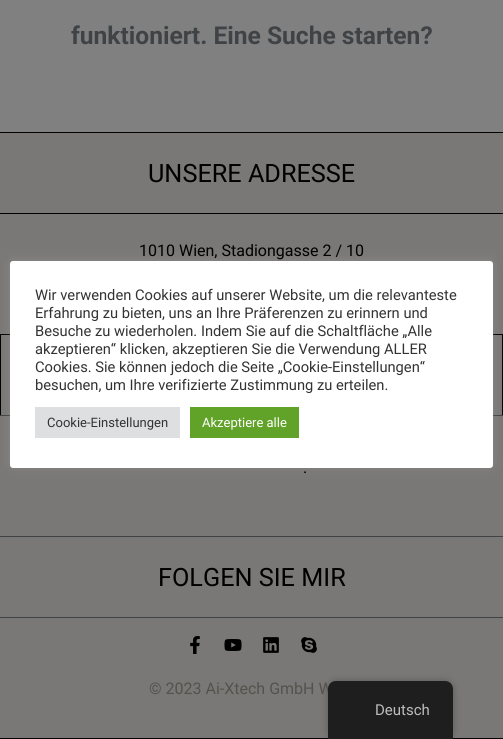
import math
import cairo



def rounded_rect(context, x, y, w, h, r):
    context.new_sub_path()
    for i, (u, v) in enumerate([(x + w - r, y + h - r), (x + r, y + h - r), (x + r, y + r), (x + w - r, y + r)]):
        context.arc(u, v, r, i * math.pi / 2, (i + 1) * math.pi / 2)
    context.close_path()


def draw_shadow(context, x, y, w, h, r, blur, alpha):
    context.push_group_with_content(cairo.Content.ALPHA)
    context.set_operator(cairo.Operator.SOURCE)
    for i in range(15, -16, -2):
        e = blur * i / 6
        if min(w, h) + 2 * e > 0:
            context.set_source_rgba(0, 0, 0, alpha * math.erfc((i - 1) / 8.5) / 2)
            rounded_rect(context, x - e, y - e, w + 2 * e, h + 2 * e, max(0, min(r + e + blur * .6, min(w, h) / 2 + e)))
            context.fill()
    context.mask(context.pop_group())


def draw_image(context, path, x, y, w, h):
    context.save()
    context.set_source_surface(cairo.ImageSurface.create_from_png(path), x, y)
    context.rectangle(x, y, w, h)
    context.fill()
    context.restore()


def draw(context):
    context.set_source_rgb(128 / 255, 128 / 255, 128 / 255)
    context.paint()
    context.set_source_rgb(121 / 255, 120 / 255, 118 / 255)
    context.rectangle(0, 133, 503, 605)
    context.fill()
    context.set_source_rgb(0, 0, 0)
    context.rectangle(0, 132, 503, 1)
    context.fill()
    context.rectangle(0, 738, 503, 1)
    context.fill()
    context.rectangle(0, 213, 503, 1)
    context.fill()
    context.rectangle(0, 334, 503, 1)
    context.fill()
    context.rectangle(502, 335, 1, 80)
    context.fill()
    context.rectangle(0, 335, 1, 80)
    context.fill()
    context.set_source_rgb(63 / 255, 67 / 255, 70 / 255)
    context.rectangle(0, 415, 503, 1)
    context.fill()
    context.rectangle(0, 536, 503, 1)
    context.fill()
    context.rectangle(0, 617, 503, 1)
    context.fill()
    draw_image(context, "images/1.png", 190, 636, 10, 18)
    draw_image(context, "images/2.png", 224, 639, 18, 12)
    draw_image(context, "images/3.png", 263, 637, 16, 16)
    draw_image(context, "images/4.png", 301, 637, 16, 16)
    context.set_source_rgb(172 / 255, 171 / 255, 171 / 255)
    draw_shadow(context, 10, 260, 483, 207, 3, 5, 0.3)
    context.set_source_rgb(1, 1, 1)
    rounded_rect(context, 10, 261, 483, 207, 3)
    context.fill()
    context.set_source_rgb(222 / 255, 223 / 255, 224 / 255)
    context.rectangle(35, 407, 145, 31)
    context.fill()
    context.set_source_rgb(97 / 255, 162 / 255, 41 / 255)
    context.rectangle(190, 407, 109, 31)
    context.fill()
    context.set_source_rgb(0, 0, 0)
    draw_shadow(context, 328, 681, 125, 58, 8, 4, 0.25)
    context.select_font_face("Roboto", cairo.FontSlant.NORMAL, cairo.FontWeight.BOLD)
    context.set_font_size(24.6)
    context.set_source_rgb(63 / 255, 67 / 255, 70 / 255)
    context.move_to(71, 44)
    context.show_text("funktioniert. Eine Suche starten?")
    context.select_font_face("Roboto")
    context.set_font_size(25.25)
    context.set_source_rgb(0, 0, 0)
    context.move_to(148, 182)
    context.show_text("UNSERE ADRESSE")
    context.set_font_size(16)
    context.move_to(139, 256)
    context.show_text("1010 Wien, Stadiongasse 2 / 10")
    context.move_to(303, 473)
    context.show_text(".")
    context.set_font_size(25.25)
    context.move_to(158, 586)
    context.show_text("FOLGEN SIE MIR")
    context.set_font_size(16)
    context.set_source_rgb(86 / 255, 81 / 255, 76 / 255)
    context.move_to(149, 694)
    context.show_text("© 2023 Ai-Xtech GmbH W")
    context.set_font_size(14.7)
    context.set_source_rgb(51 / 255, 51 / 255, 51 / 255)
    context.move_to(35, 300)
    context.show_text("Wir verwenden Cookies auf unserer Website, um die relevanteste")
    context.move_to(35, 318)
    context.show_text("Erfahrung zu bieten, uns an Ihre Präferenzen zu erinnern und")
    context.move_to(35, 336)
    context.show_text("Besuche zu wiederholen. Indem Sie auf die Schaltfläche „Alle")
    context.move_to(35, 354)
    context.show_text("akzeptieren“ klicken, akzeptieren Sie die Verwendung ALLER")
    context.move_to(35, 372)
    context.show_text("Cookies. Sie können jedoch die Seite „Cookie-Einstellungen“")
    context.move_to(35, 390)
    context.show_text("besuchen, um Ihre verifizierte Zustimmung zu erteilen.")
    context.set_font_size(13)
    context.move_to(47, 427)
    context.show_text("Cookie-Einstellungen")
    context.set_source_rgb(1, 1, 1)
    context.move_to(202, 427)
    context.show_text("Akzeptiere alle")
    context.set_source_rgb(30 / 255, 30 / 255, 30 / 255)
    context.new_path()
    context.move_to(336, 681)
    context.line_to(445, 681)
    context.curve_to(449.5, 681, 453, 684.5, 453, 689)
    context.line_to(453, 739)
    context.line_to(328, 739)
    context.line_to(328, 689)
    context.curve_to(328, 684.5, 331.5, 681, 336, 681)
    context.close_path()
    context.fill()
    context.set_font_size(15)
    context.set_source_rgb(189 / 255, 189 / 255, 189 / 255)
    context.move_to(375, 715)
    context.show_text("Deutsch")


surface = cairo.ImageSurface(cairo.Format.RGB24, 503, 739)
context = cairo.Context(surface)
options = cairo.FontOptions()
options.set_hint_metrics(cairo.HintMetrics.OFF)
options.set_hint_style(cairo.HintStyle.NONE)
context.set_font_options(options)
context.set_miter_limit(4)
draw(context)
surface.write_to_png("out.png")
